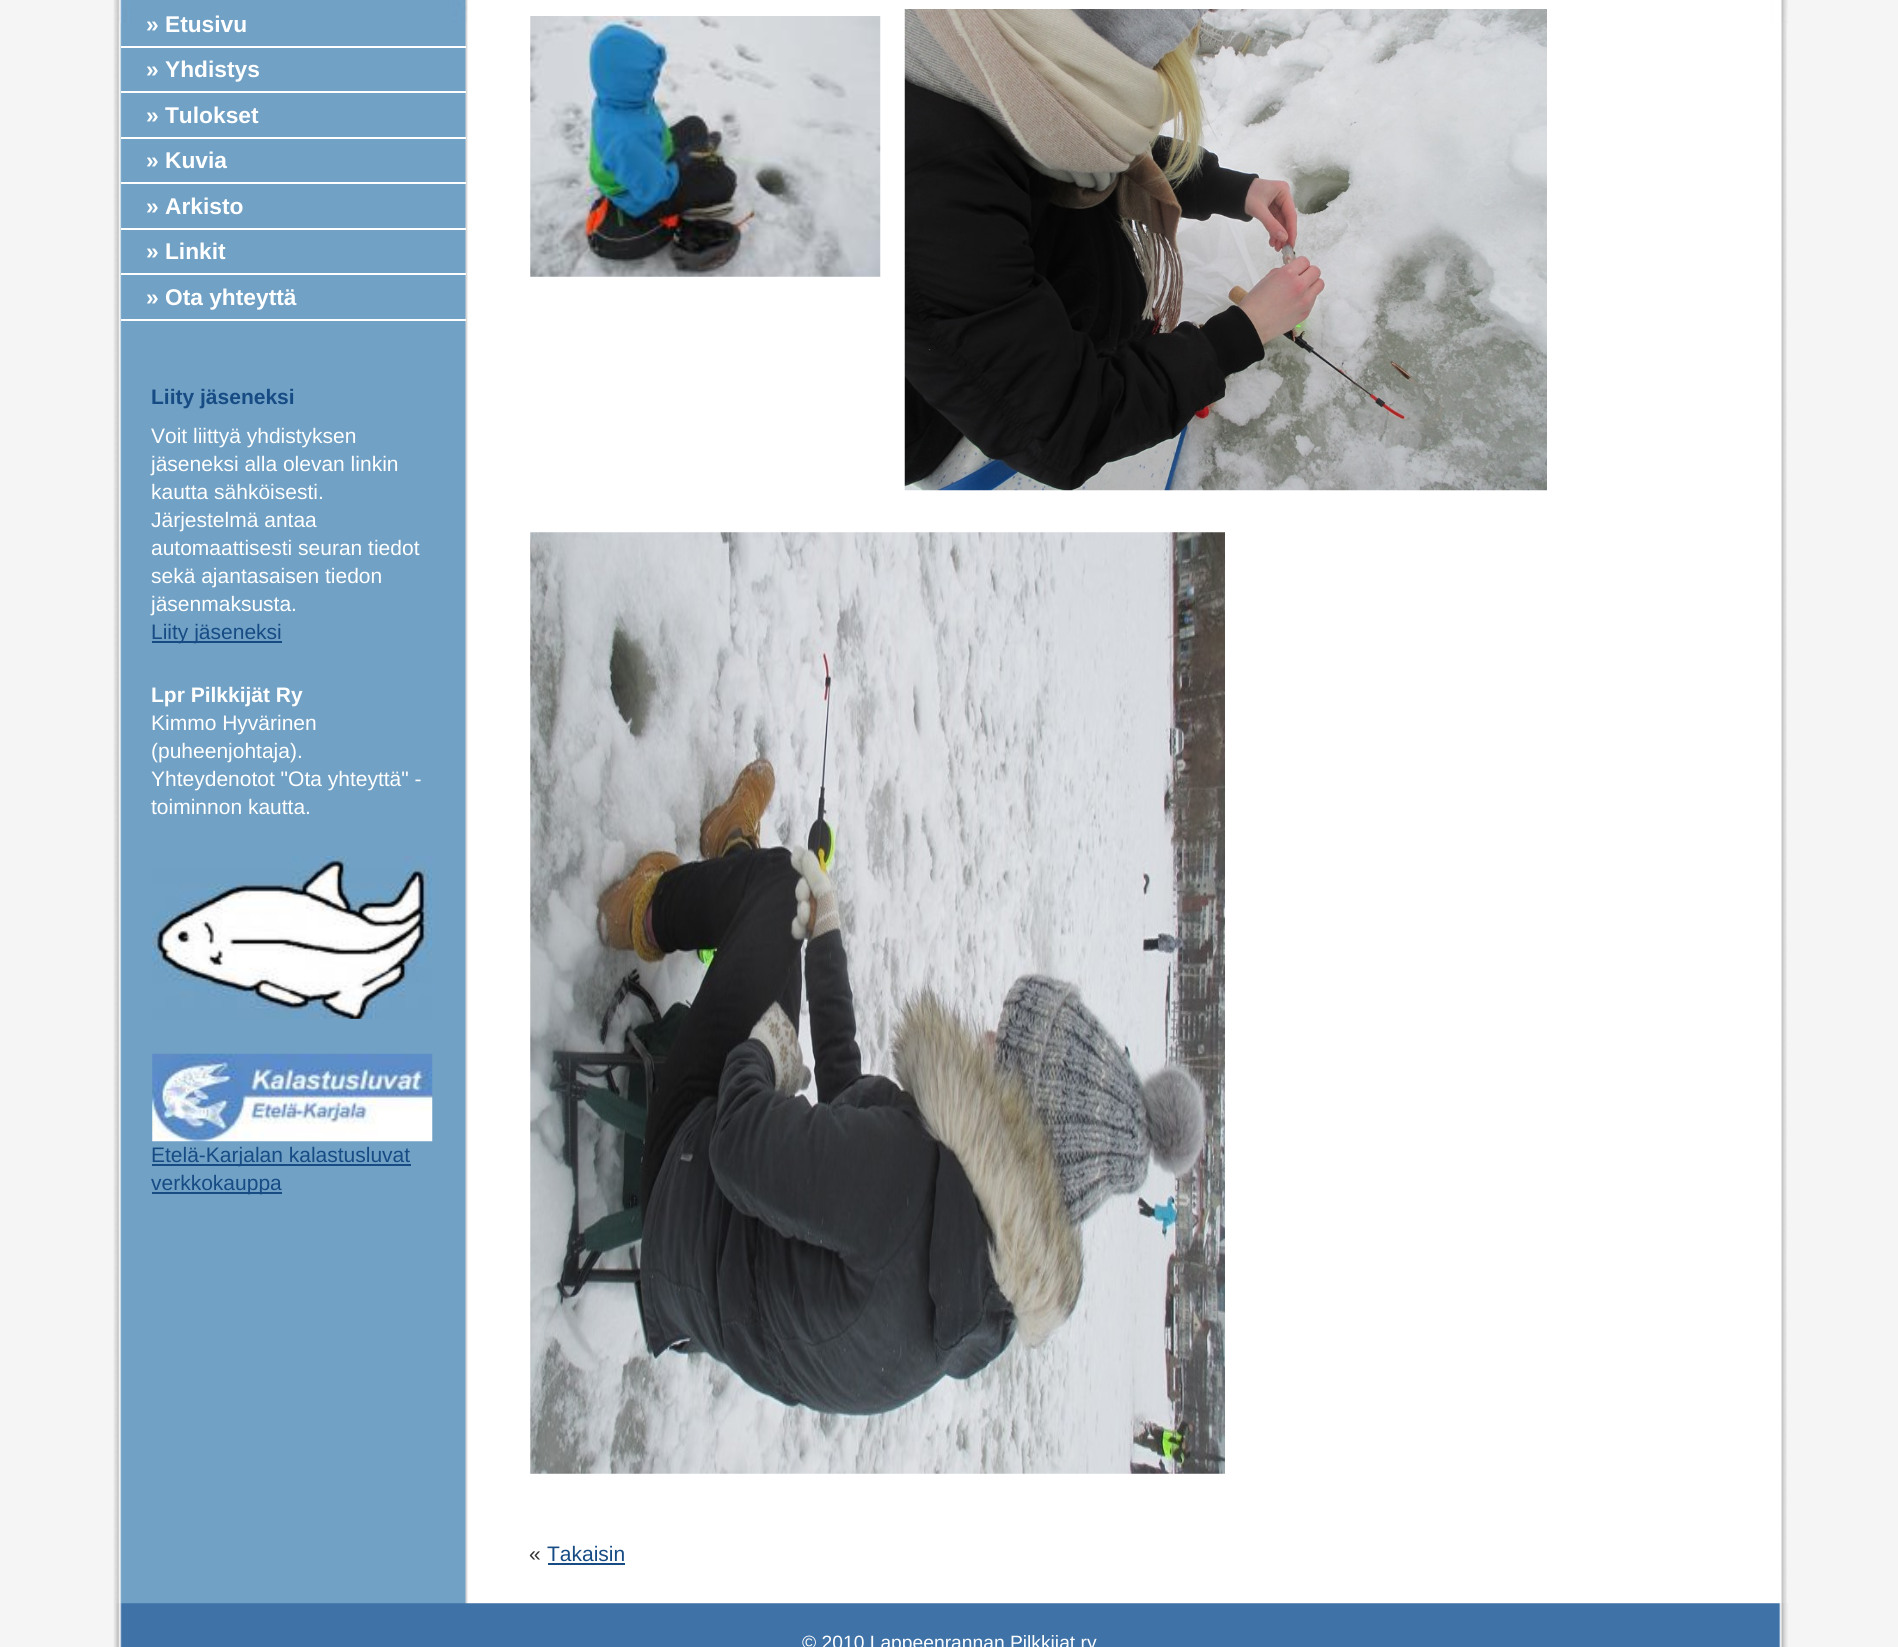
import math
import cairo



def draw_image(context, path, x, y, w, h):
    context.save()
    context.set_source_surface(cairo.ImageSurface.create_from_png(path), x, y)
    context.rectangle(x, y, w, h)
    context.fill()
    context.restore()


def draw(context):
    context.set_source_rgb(245 / 255, 245 / 255, 245 / 255)
    context.paint()
    draw_image(context, "images/1.png", 113, 0, 1674, 1647)
    draw_image(context, "images/2.png", 118, 0, 1670, 23)
    context.set_source_rgb(1, 1, 1)
    context.rectangle(121, 46, 345, 2)
    context.fill()
    context.rectangle(121, 91, 345, 2)
    context.fill()
    context.rectangle(121, 137, 345, 2)
    context.fill()
    context.rectangle(121, 182, 345, 2)
    context.fill()
    context.rectangle(121, 228, 345, 2)
    context.fill()
    context.rectangle(121, 273, 345, 2)
    context.fill()
    context.rectangle(121, 319, 345, 2)
    context.fill()
    context.set_source_rgb(22 / 255, 75 / 255, 132 / 255)
    context.rectangle(152, 641, 130, 2)
    context.fill()
    draw_image(context, "images/3.png", 152, 856, 281, 163)
    draw_image(context, "images/4.png", 152, 1053, 281, 89)
    context.rectangle(152, 1164, 259, 2)
    context.fill()
    context.rectangle(152, 1192, 130, 2)
    context.fill()
    draw_image(context, "images/5.png", 530, 16, 351, 261)
    draw_image(context, "images/6.png", 904, 9, 643, 482)
    draw_image(context, "images/7.png", 530, 532, 695, 942)
    context.rectangle(548, 1563, 77, 2)
    context.fill()
    draw_image(context, "images/8.png", 116, 1603, 1672, 44)
    context.select_font_face("Liberation Sans", cairo.FontSlant.NORMAL, cairo.FontWeight.BOLD)
    context.set_font_size(22.75)
    context.set_source_rgb(1, 1, 1)
    context.move_to(146, 32)
    context.show_text("» Etusivu")
    context.move_to(146, 77)
    context.show_text("» Yhdistys")
    context.move_to(146, 123)
    context.show_text("» Tulokset")
    context.move_to(146, 168)
    context.show_text("» Kuvia")
    context.move_to(146, 214)
    context.show_text("» Arkisto")
    context.move_to(146, 259)
    context.show_text("» Linkit")
    context.move_to(146, 305)
    context.show_text("» Ota yhteyttä")
    context.set_font_size(21)
    context.set_source_rgb(22 / 255, 75 / 255, 132 / 255)
    context.move_to(151, 404)
    context.show_text("Liity jäseneksi")
    context.select_font_face("Liberation Sans")
    context.set_source_rgb(1, 1, 1)
    context.move_to(151, 443)
    context.show_text("Voit liittyä yhdistyksen")
    context.move_to(151, 471)
    context.show_text("jäseneksi alla olevan linkin")
    context.move_to(151, 499)
    context.show_text("kautta sähköisesti.")
    context.move_to(151, 527)
    context.show_text("Järjestelmä antaa")
    context.move_to(151, 555)
    context.show_text("automaattisesti seuran tiedot")
    context.move_to(151, 583)
    context.show_text("sekä ajantasaisen tiedon")
    context.move_to(151, 611)
    context.show_text("jäsenmaksusta.")
    context.set_source_rgb(22 / 255, 75 / 255, 132 / 255)
    context.move_to(151, 639)
    context.show_text("Liity jäseneksi")
    context.select_font_face("Liberation Sans", cairo.FontSlant.NORMAL, cairo.FontWeight.BOLD)
    context.set_source_rgb(1, 1, 1)
    context.move_to(151, 702)
    context.show_text("Lpr Pilkkijät Ry")
    context.select_font_face("Liberation Sans")
    context.move_to(151, 730)
    context.show_text("Kimmo Hyvärinen")
    context.move_to(151, 758)
    context.show_text("(puheenjohtaja).")
    context.move_to(151, 786)
    context.show_text("Yhteydenotot \"Ota yhteyttä\" -")
    context.move_to(151, 814)
    context.show_text("toiminnon kautta.")
    context.set_source_rgb(22 / 255, 75 / 255, 132 / 255)
    context.move_to(151, 1162)
    context.show_text("Etelä-Karjalan kalastusluvat")
    context.move_to(151, 1190)
    context.show_text("verkkokauppa")
    context.set_source_rgb(51 / 255, 51 / 255, 51 / 255)
    context.move_to(529, 1561)
    context.show_text("«")
    context.set_source_rgb(22 / 255, 75 / 255, 132 / 255)
    context.move_to(547, 1561)
    context.show_text("Takaisin")
    context.set_font_size(19.25)
    context.set_source_rgb(1, 1, 1)
    context.move_to(802, 1649)
    context.show_text("© 2010 Lappeenrannan Pilkkijat ry")


surface = cairo.ImageSurface(cairo.Format.RGB24, 1898, 1647)
context = cairo.Context(surface)
options = cairo.FontOptions()
options.set_hint_metrics(cairo.HintMetrics.OFF)
options.set_hint_style(cairo.HintStyle.NONE)
context.set_font_options(options)
context.set_miter_limit(4)
draw(context)
surface.write_to_png("out.png")
